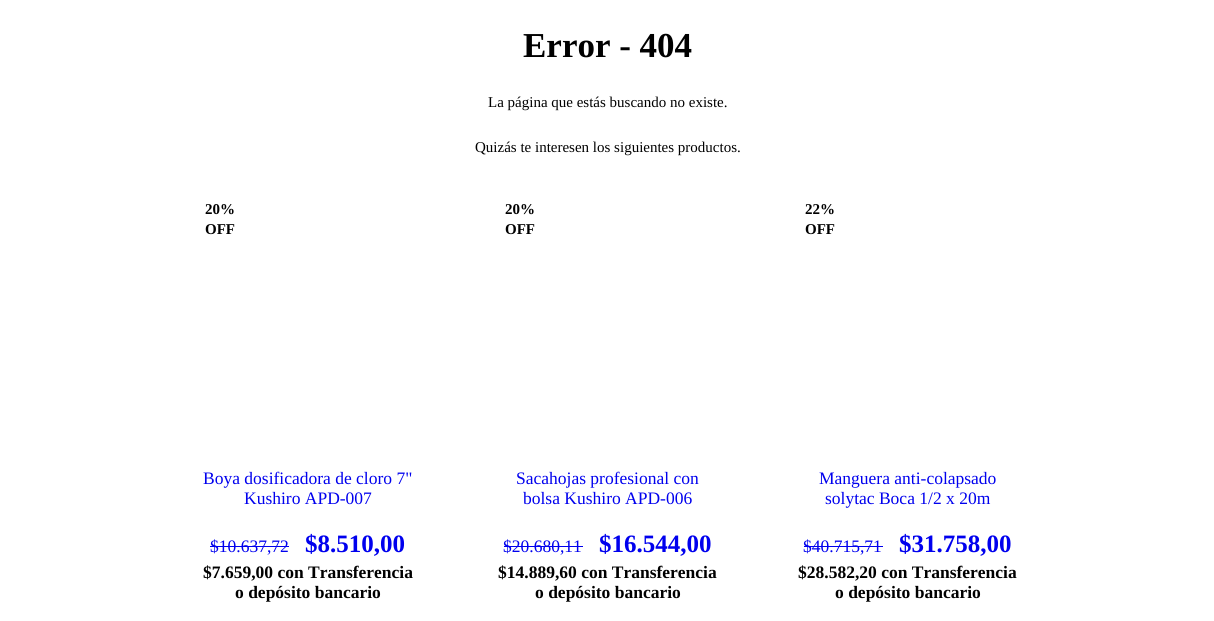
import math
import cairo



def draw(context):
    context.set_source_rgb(1, 1, 1)
    context.paint()
    context.set_source_rgb(0, 0, 238 / 255)
    context.rectangle(210, 546, 79, 1)
    context.fill()
    context.rectangle(504, 546, 79, 1)
    context.fill()
    context.rectangle(804, 546, 79, 1)
    context.fill()
    context.select_font_face("Liberation Serif", cairo.FontSlant.NORMAL, cairo.FontWeight.BOLD)
    context.set_font_size(35)
    context.set_source_rgb(0, 0, 0)
    context.move_to(523, 57)
    context.show_text("Error - 404")
    context.select_font_face("Liberation Serif")
    context.set_font_size(15)
    context.move_to(488, 107)
    context.show_text("La página que estás buscando no existe.")
    context.move_to(475, 152)
    context.show_text("Quizás te interesen los siguientes productos.")
    context.select_font_face("Liberation Serif", cairo.FontSlant.NORMAL, cairo.FontWeight.BOLD)
    context.move_to(205, 214)
    context.show_text("20%")
    context.move_to(205, 234)
    context.show_text("OFF")
    context.select_font_face("Liberation Serif")
    context.set_font_size(17.5)
    context.set_source_rgb(0, 0, 238 / 255)
    context.move_to(203, 484)
    context.show_text("Boya dosificadora de cloro 7\"")
    context.move_to(244, 504)
    context.show_text("Kushiro APD-007")
    context.move_to(210, 552)
    context.show_text("$10.637,72")
    context.select_font_face("Liberation Serif", cairo.FontSlant.NORMAL, cairo.FontWeight.BOLD)
    context.set_font_size(25)
    context.move_to(305, 552)
    context.show_text("$8.510,00")
    context.set_font_size(17.5)
    context.set_source_rgb(0, 0, 0)
    context.move_to(203, 578)
    context.show_text("$7.659,00 con Transferencia")
    context.move_to(235, 598)
    context.show_text("o depósito bancario")
    context.set_font_size(15)
    context.move_to(505, 214)
    context.show_text("20%")
    context.move_to(505, 234)
    context.show_text("OFF")
    context.select_font_face("Liberation Serif")
    context.set_font_size(17.5)
    context.set_source_rgb(0, 0, 238 / 255)
    context.move_to(516, 484)
    context.show_text("Sacahojas profesional con")
    context.move_to(523, 504)
    context.show_text("bolsa Kushiro APD-006")
    context.move_to(503, 552)
    context.show_text("$20.680,11")
    context.select_font_face("Liberation Serif", cairo.FontSlant.NORMAL, cairo.FontWeight.BOLD)
    context.set_font_size(25)
    context.move_to(599, 552)
    context.show_text("$16.544,00")
    context.set_font_size(17.5)
    context.set_source_rgb(0, 0, 0)
    context.move_to(498, 578)
    context.show_text("$14.889,60 con Transferencia")
    context.move_to(535, 598)
    context.show_text("o depósito bancario")
    context.set_font_size(15)
    context.move_to(805, 214)
    context.show_text("22%")
    context.move_to(805, 234)
    context.show_text("OFF")
    context.select_font_face("Liberation Serif")
    context.set_font_size(17.5)
    context.set_source_rgb(0, 0, 238 / 255)
    context.move_to(819, 484)
    context.show_text("Manguera anti-colapsado")
    context.move_to(825, 504)
    context.show_text("solytac Boca 1/2 x 20m")
    context.move_to(803, 552)
    context.show_text("$40.715,71")
    context.select_font_face("Liberation Serif", cairo.FontSlant.NORMAL, cairo.FontWeight.BOLD)
    context.set_font_size(25)
    context.move_to(899, 552)
    context.show_text("$31.758,00")
    context.set_font_size(17.5)
    context.set_source_rgb(0, 0, 0)
    context.move_to(798, 578)
    context.show_text("$28.582,20 con Transferencia")
    context.move_to(835, 598)
    context.show_text("o depósito bancario")


surface = cairo.ImageSurface(cairo.Format.RGB24, 1214, 621)
context = cairo.Context(surface)
options = cairo.FontOptions()
options.set_hint_metrics(cairo.HintMetrics.OFF)
options.set_hint_style(cairo.HintStyle.NONE)
context.set_font_options(options)
context.set_miter_limit(4)
draw(context)
surface.write_to_png("out.png")
